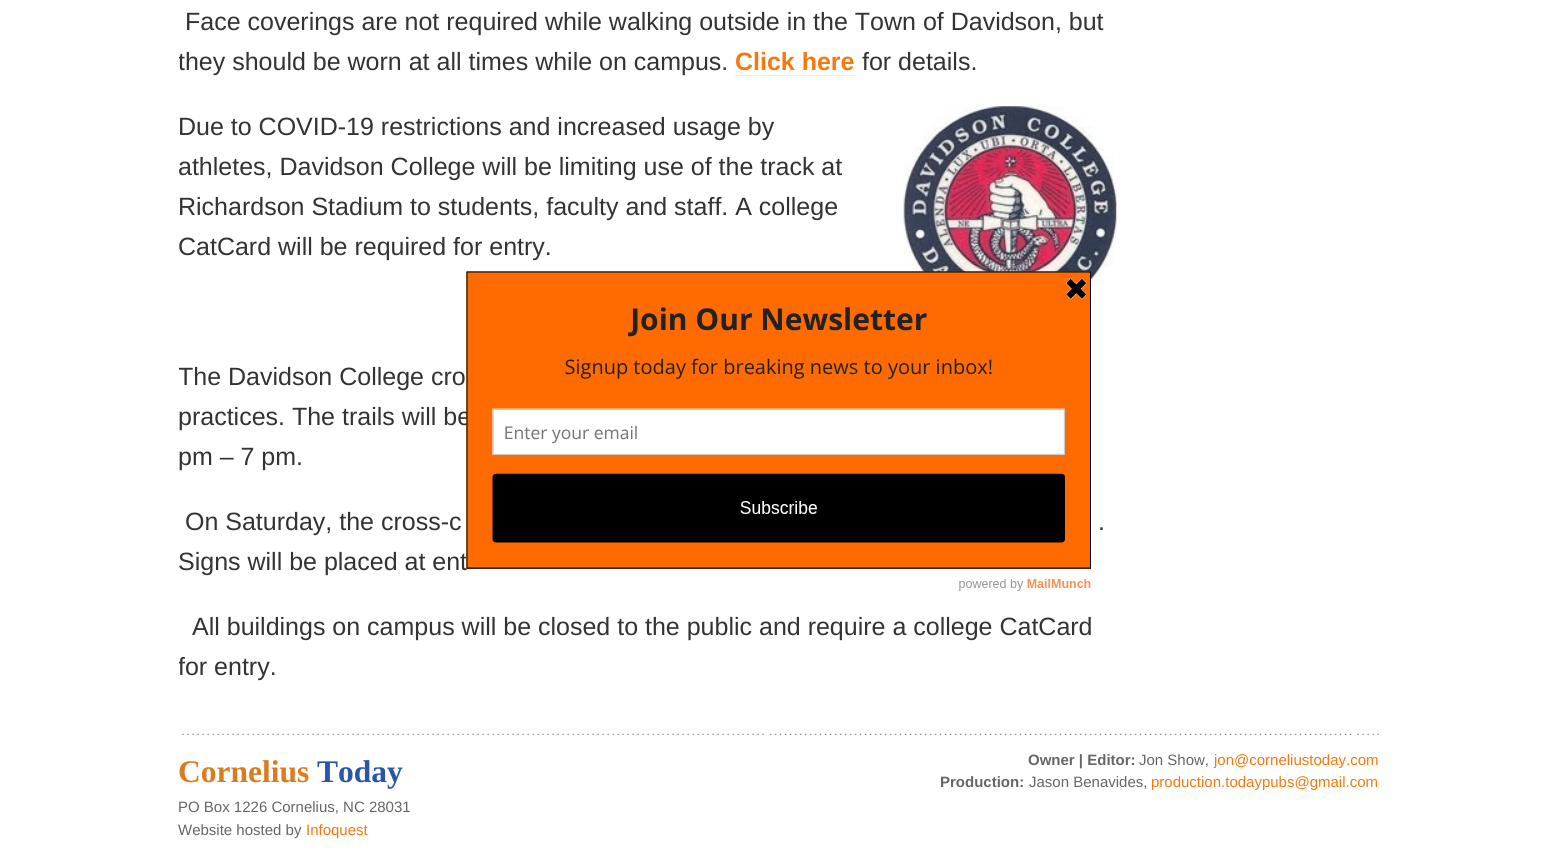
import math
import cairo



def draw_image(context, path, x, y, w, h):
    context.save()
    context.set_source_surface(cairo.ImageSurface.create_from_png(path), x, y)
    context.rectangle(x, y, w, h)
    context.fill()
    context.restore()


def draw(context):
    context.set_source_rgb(1, 1, 1)
    context.paint()
    context.set_source_rgb(238 / 255, 238 / 255, 238 / 255)
    context.rectangle(735, 75, 120, 1)
    context.fill()
    draw_image(context, "images/1.png", 903, 106, 214, 209)
    draw_image(context, "images/2.png", 182, 733, 1197, 2)
    context.select_font_face("Liberation Sans")
    context.set_font_size(25)
    context.set_source_rgb(51 / 255, 51 / 255, 51 / 255)
    context.move_to(185, 30)
    context.show_text("Face coverings are not required while walking outside in the Town of Davidson, but")
    context.save()
    context.rectangle(179, 0, 1200, 711)
    context.clip()
    context.move_to(178, 70)
    context.show_text("they should be worn at all times while on campus.")
    context.restore()
    context.select_font_face("Liberation Sans", cairo.FontSlant.NORMAL, cairo.FontWeight.BOLD)
    context.set_source_rgb(245 / 255, 121 / 255, 12 / 255)
    context.move_to(735, 70)
    context.show_text("Click here")
    context.select_font_face("Liberation Sans")
    context.set_source_rgb(51 / 255, 51 / 255, 51 / 255)
    context.move_to(862, 70)
    context.show_text("for details.")
    context.move_to(178, 135)
    context.show_text("Due to COVID-19 restrictions and increased usage by")
    context.move_to(178, 175)
    context.show_text("athletes, Davidson College will be limiting use of the track at")
    context.move_to(178, 215)
    context.show_text("Richardson Stadium to students, faculty and staff. A college")
    context.move_to(178, 255)
    context.show_text("CatCard will be required for entry.")
    context.save()
    context.rectangle(179, 0, 1200, 711)
    context.clip()
    context.move_to(178, 385)
    context.show_text("The Davidson College cro")
    context.restore()
    context.move_to(178, 425)
    context.show_text("practices. The trails will be")
    context.move_to(178, 465)
    context.show_text("pm – 7 pm.")
    context.move_to(185, 530)
    context.show_text("On Saturday, the cross-c")
    context.move_to(1098, 530)
    context.show_text(".")
    context.move_to(178, 570)
    context.show_text("Signs will be placed at ent")
    context.move_to(192, 635)
    context.show_text("All buildings on campus will be closed to the public and require a college CatCard")
    context.save()
    context.rectangle(179, 0, 1200, 711)
    context.clip()
    context.move_to(178, 675)
    context.show_text("for entry.")
    context.restore()
    context.select_font_face("Liberation Serif", cairo.FontSlant.NORMAL, cairo.FontWeight.BOLD)
    context.set_font_size(31.5)
    context.set_source_rgb(220 / 255, 122 / 255, 31 / 255)
    context.move_to(178, 782)
    context.show_text("Cornelius")
    context.set_source_rgb(40 / 255, 86 / 255, 171 / 255)
    context.move_to(317, 782)
    context.show_text("Today")
    context.select_font_face("Liberation Sans")
    context.set_font_size(15)
    context.set_source_rgb(102 / 255, 102 / 255, 102 / 255)
    context.move_to(178, 812)
    context.show_text("PO Box 1226 Cornelius, NC 28031")
    context.move_to(178, 835)
    context.show_text("Website hosted by")
    context.set_source_rgb(245 / 255, 121 / 255, 12 / 255)
    context.move_to(306, 835)
    context.show_text("Infoquest")
    context.select_font_face("Liberation Sans", cairo.FontSlant.NORMAL, cairo.FontWeight.BOLD)
    context.set_source_rgb(102 / 255, 102 / 255, 102 / 255)
    context.move_to(1028, 765)
    context.show_text("Owner | Editor:")
    context.select_font_face("Liberation Sans")
    context.move_to(1139, 765)
    context.show_text("Jon Show,")
    context.set_source_rgb(245 / 255, 121 / 255, 12 / 255)
    context.move_to(1214, 765)
    context.show_text("jon@corneliustoday.com")
    context.select_font_face("Liberation Sans", cairo.FontSlant.NORMAL, cairo.FontWeight.BOLD)
    context.set_source_rgb(102 / 255, 102 / 255, 102 / 255)
    context.move_to(940, 787)
    context.show_text("Production:")
    context.select_font_face("Liberation Sans")
    context.move_to(1029, 787)
    context.show_text("Jason Benavides,")
    context.set_source_rgb(245 / 255, 121 / 255, 12 / 255)
    context.move_to(1151, 787)
    context.show_text("production.todaypubs@gmail.com")
    draw_image(context, "images/3.png", 466, 271, 625, 320)


surface = cairo.ImageSurface(cairo.Format.RGB24, 1556, 866)
context = cairo.Context(surface)
options = cairo.FontOptions()
options.set_hint_metrics(cairo.HintMetrics.OFF)
options.set_hint_style(cairo.HintStyle.NONE)
context.set_font_options(options)
context.set_miter_limit(4)
draw(context)
surface.write_to_png("out.png")
